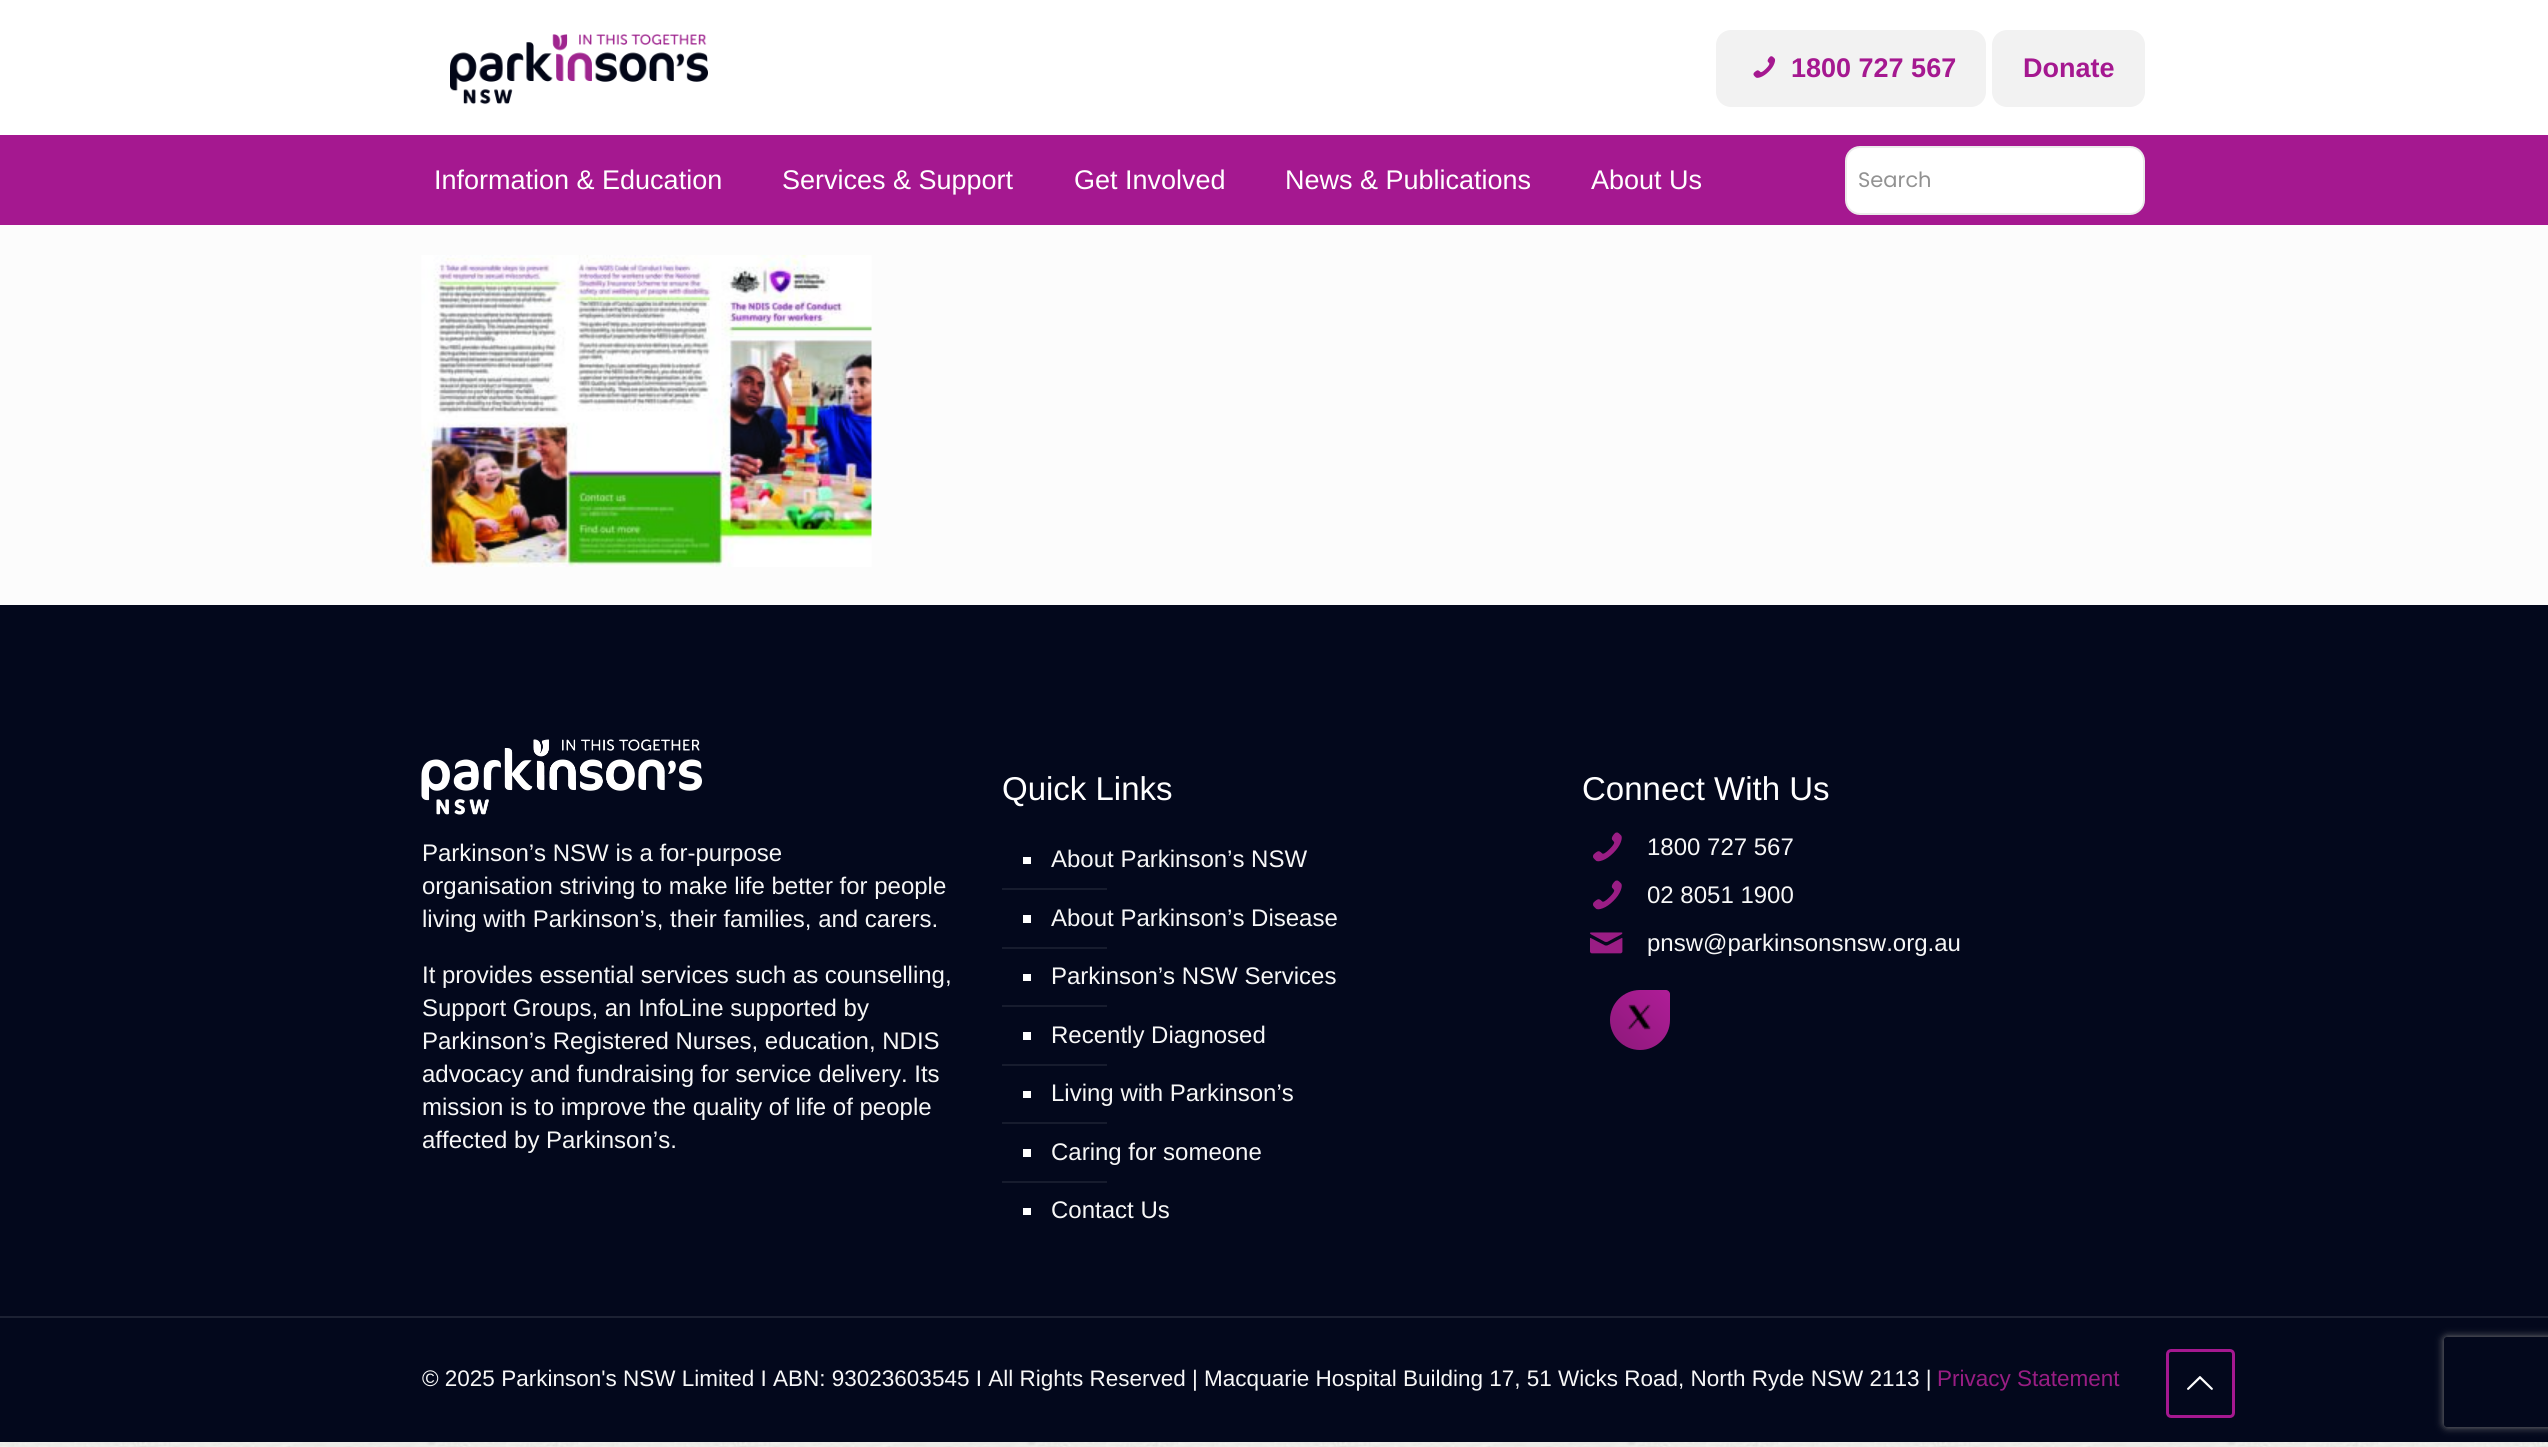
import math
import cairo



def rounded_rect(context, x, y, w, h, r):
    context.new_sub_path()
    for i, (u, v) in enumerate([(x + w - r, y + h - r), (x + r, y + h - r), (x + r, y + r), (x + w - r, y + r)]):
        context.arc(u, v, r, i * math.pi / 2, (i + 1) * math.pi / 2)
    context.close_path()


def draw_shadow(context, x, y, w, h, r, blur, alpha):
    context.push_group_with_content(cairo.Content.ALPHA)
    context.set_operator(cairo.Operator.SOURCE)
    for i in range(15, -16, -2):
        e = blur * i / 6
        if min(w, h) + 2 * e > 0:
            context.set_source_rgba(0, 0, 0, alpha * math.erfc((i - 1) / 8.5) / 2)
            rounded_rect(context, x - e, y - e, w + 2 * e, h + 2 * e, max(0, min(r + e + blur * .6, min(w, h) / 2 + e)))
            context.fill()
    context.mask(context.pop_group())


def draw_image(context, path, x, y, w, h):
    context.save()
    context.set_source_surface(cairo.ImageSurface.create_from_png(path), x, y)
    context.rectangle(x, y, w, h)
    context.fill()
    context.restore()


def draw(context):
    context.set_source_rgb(1, 1, 1)
    context.paint()
    draw_image(context, "images/1.png", 0, 1442, 2548, 5)
    context.set_source_rgb(252 / 255, 252 / 255, 252 / 255)
    context.rectangle(0, 225, 2548, 380)
    context.fill()
    draw_image(context, "images/2.png", 450, 34, 258, 71)
    context.set_source_rgb(242 / 255, 242 / 255, 242 / 255)
    rounded_rect(context, 1716, 30, 270, 77, 15)
    context.fill()
    draw_image(context, "images/3.png", 1753, 56, 23, 22)
    rounded_rect(context, 1992, 30, 153, 77, 15)
    context.fill()
    context.set_source_rgb(165 / 255, 24 / 255, 144 / 255)
    context.rectangle(0, 135, 2548, 90)
    context.fill()
    context.set_source_rgb(1, 1, 1)
    rounded_rect(context, 1846, 147, 298, 67, 14)
    context.fill_preserve()
    context.set_source_rgb(235 / 255, 235 / 255, 235 / 255)
    context.stroke()
    draw_image(context, "images/4.png", 421, 255, 451, 312)
    context.set_source_rgb(3 / 255, 8 / 255, 28 / 255)
    context.rectangle(0, 605, 2548, 837)
    context.fill()
    draw_image(context, "images/5.png", 421, 739, 281, 76)
    context.set_source_rgb(1, 1, 1)
    context.rectangle(1023, 857, 8, 7)
    context.fill()
    context.set_source_rgb(23 / 255, 28 / 255, 46 / 255)
    context.rectangle(1002, 888, 105, 2)
    context.fill()
    context.set_source_rgb(1, 1, 1)
    context.rectangle(1023, 915, 8, 8)
    context.fill()
    context.set_source_rgb(23 / 255, 28 / 255, 46 / 255)
    context.rectangle(1002, 947, 105, 2)
    context.fill()
    context.set_source_rgb(1, 1, 1)
    context.rectangle(1023, 974, 8, 7)
    context.fill()
    context.set_source_rgb(23 / 255, 28 / 255, 46 / 255)
    context.rectangle(1002, 1005, 105, 2)
    context.fill()
    context.set_source_rgb(1, 1, 1)
    context.rectangle(1023, 1032, 8, 8)
    context.fill()
    context.set_source_rgb(23 / 255, 28 / 255, 46 / 255)
    context.rectangle(1002, 1064, 105, 2)
    context.fill()
    context.set_source_rgb(1, 1, 1)
    context.rectangle(1023, 1091, 8, 7)
    context.fill()
    context.set_source_rgb(23 / 255, 28 / 255, 46 / 255)
    context.rectangle(1002, 1122, 105, 2)
    context.fill()
    context.set_source_rgb(1, 1, 1)
    context.rectangle(1023, 1149, 8, 8)
    context.fill()
    context.set_source_rgb(23 / 255, 28 / 255, 46 / 255)
    context.rectangle(1002, 1181, 105, 2)
    context.fill()
    context.set_source_rgb(1, 1, 1)
    context.rectangle(1023, 1208, 8, 7)
    context.fill()
    draw_image(context, "images/6.png", 1593, 832, 29, 30)
    draw_image(context, "images/6.png", 1593, 880, 29, 30)
    draw_image(context, "images/7.png", 1590, 932, 33, 22)
    gradient = cairo.LinearGradient(1610, 1050, 1716, 944)
    gradient.add_color_stop_rgba(0, 141 / 255, 25 / 255, 122 / 255, 1)
    gradient.add_color_stop_rgba(1, 202 / 255, 32 / 255, 174 / 255, 1)
    context.set_source(gradient)
    context.new_path()
    context.move_to(1640, 990)
    context.line_to(1666, 990)
    context.curve_to(1668, 990, 1670, 992, 1670, 994)
    context.line_to(1670, 1020)
    context.curve_to(1670, 1036.5, 1656.5, 1050, 1640, 1050)
    context.curve_to(1623.5, 1050, 1610, 1036.5, 1610, 1020)
    context.curve_to(1610, 1003.5, 1623.5, 990, 1640, 990)
    context.close_path()
    context.fill()
    draw_image(context, "images/8.png", 1627, 1004, 24, 26)
    context.set_source_rgb(28 / 255, 33 / 255, 51 / 255)
    context.rectangle(0, 1316, 2548, 2)
    context.fill()
    rounded_rect(context, 2167.5, 1350.5, 66, 66, 3.5)
    context.set_source_rgb(165 / 255, 24 / 255, 144 / 255)
    context.set_line_width(3)
    context.stroke()
    draw_image(context, "images/9.png", 2187, 1376, 26, 14)
    context.save()
    context.set_fill_rule(cairo.FillRule.EVEN_ODD)
    context.new_path()
    context.move_to(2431, 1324)
    context.line_to(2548, 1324)
    context.line_to(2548, 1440)
    context.line_to(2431, 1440)
    context.close_path()
    context.move_to(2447, 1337)
    context.line_to(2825, 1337)
    context.curve_to(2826.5, 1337, 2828, 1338.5, 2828, 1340)
    context.line_to(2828, 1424)
    context.curve_to(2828, 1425.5, 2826.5, 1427, 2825, 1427)
    context.line_to(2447, 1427)
    context.curve_to(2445.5, 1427, 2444, 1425.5, 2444, 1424)
    context.line_to(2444, 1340)
    context.curve_to(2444, 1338.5, 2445.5, 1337, 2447, 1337)
    context.close_path()
    context.clip()
    context.set_source_rgb(128 / 255, 128 / 255, 128 / 255)
    draw_shadow(context, 2444, 1337, 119, 90, 3, 4, 1)
    context.restore()
    context.select_font_face("Liberation Sans", cairo.FontSlant.NORMAL, cairo.FontWeight.BOLD)
    context.set_font_size(27)
    context.move_to(1791, 77)
    context.show_text("1800 727 567")
    context.move_to(2023, 77)
    context.show_text("Donate")
    context.select_font_face("Liberation Sans")
    context.set_source_rgb(1, 1, 1)
    context.move_to(434, 189)
    context.show_text("Information & Education")
    context.move_to(782, 189)
    context.show_text("Services & Support")
    context.move_to(1074, 189)
    context.show_text("Get Involved")
    context.move_to(1285, 189)
    context.show_text("News & Publications")
    context.move_to(1591, 189)
    context.show_text("About Us")
    context.select_font_face("Poppins")
    context.set_font_size(21)
    context.set_source_rgb(146 / 255, 146 / 255, 146 / 255)
    context.move_to(1858, 187)
    context.show_text("Search")
    context.select_font_face("Liberation Sans")
    context.set_font_size(24)
    context.set_source_rgb(247 / 255, 247 / 255, 247 / 255)
    context.move_to(422, 861)
    context.show_text("Parkinson’s NSW is a for-purpose")
    context.move_to(422, 894)
    context.show_text("organisation striving to make life better for people")
    context.move_to(422, 927)
    context.show_text("living with Parkinson’s, their families, and carers.")
    context.move_to(422, 983)
    context.show_text("It provides essential services such as counselling,")
    context.move_to(422, 1016)
    context.show_text("Support Groups, an InfoLine supported by")
    context.move_to(422, 1049)
    context.show_text("Parkinson’s Registered Nurses, education, NDIS")
    context.move_to(422, 1082)
    context.show_text("advocacy and fundraising for service delivery. Its")
    context.move_to(422, 1115)
    context.show_text("mission is to improve the quality of life of people")
    context.move_to(422, 1148)
    context.show_text("affected by Parkinson’s.")
    context.set_font_size(33)
    context.set_source_rgb(1, 1, 1)
    context.move_to(1002, 800)
    context.show_text("Quick Links")
    context.set_font_size(24)
    context.set_source_rgb(247 / 255, 247 / 255, 247 / 255)
    context.move_to(1051, 867)
    context.show_text("About Parkinson’s NSW")
    context.move_to(1051, 926)
    context.show_text("About Parkinson’s Disease")
    context.move_to(1051, 984)
    context.show_text("Parkinson’s NSW Services")
    context.move_to(1051, 1043)
    context.show_text("Recently Diagnosed")
    context.move_to(1051, 1101)
    context.show_text("Living with Parkinson’s")
    context.move_to(1051, 1160)
    context.show_text("Caring for someone")
    context.move_to(1051, 1218)
    context.show_text("Contact Us")
    context.set_font_size(33)
    context.set_source_rgb(1, 1, 1)
    context.move_to(1582, 800)
    context.show_text("Connect With Us")
    context.set_font_size(24)
    context.set_source_rgb(247 / 255, 247 / 255, 247 / 255)
    context.move_to(1647, 855)
    context.show_text("1800 727 567")
    context.move_to(1647, 903)
    context.show_text("02 8051 1900")
    context.move_to(1647, 951)
    context.show_text("pnsw@parkinsonsnsw.org.au")
    context.set_font_size(22.5)
    context.move_to(422, 1386)
    context.show_text("© 2025 Parkinson's NSW Limited I ABN: 93023603545 I All Rights Reserved | Macquarie Hospital Building 17, 51 Wicks Road, North Ryde NSW 2113 |")
    context.set_source_rgb(154 / 255, 29 / 255, 132 / 255)
    context.move_to(1937, 1386)
    context.show_text("Privacy Statement")


surface = cairo.ImageSurface(cairo.Format.RGB24, 2548, 1447)
context = cairo.Context(surface)
options = cairo.FontOptions()
options.set_hint_metrics(cairo.HintMetrics.OFF)
options.set_hint_style(cairo.HintStyle.NONE)
context.set_font_options(options)
context.set_miter_limit(4)
draw(context)
surface.write_to_png("out.png")
